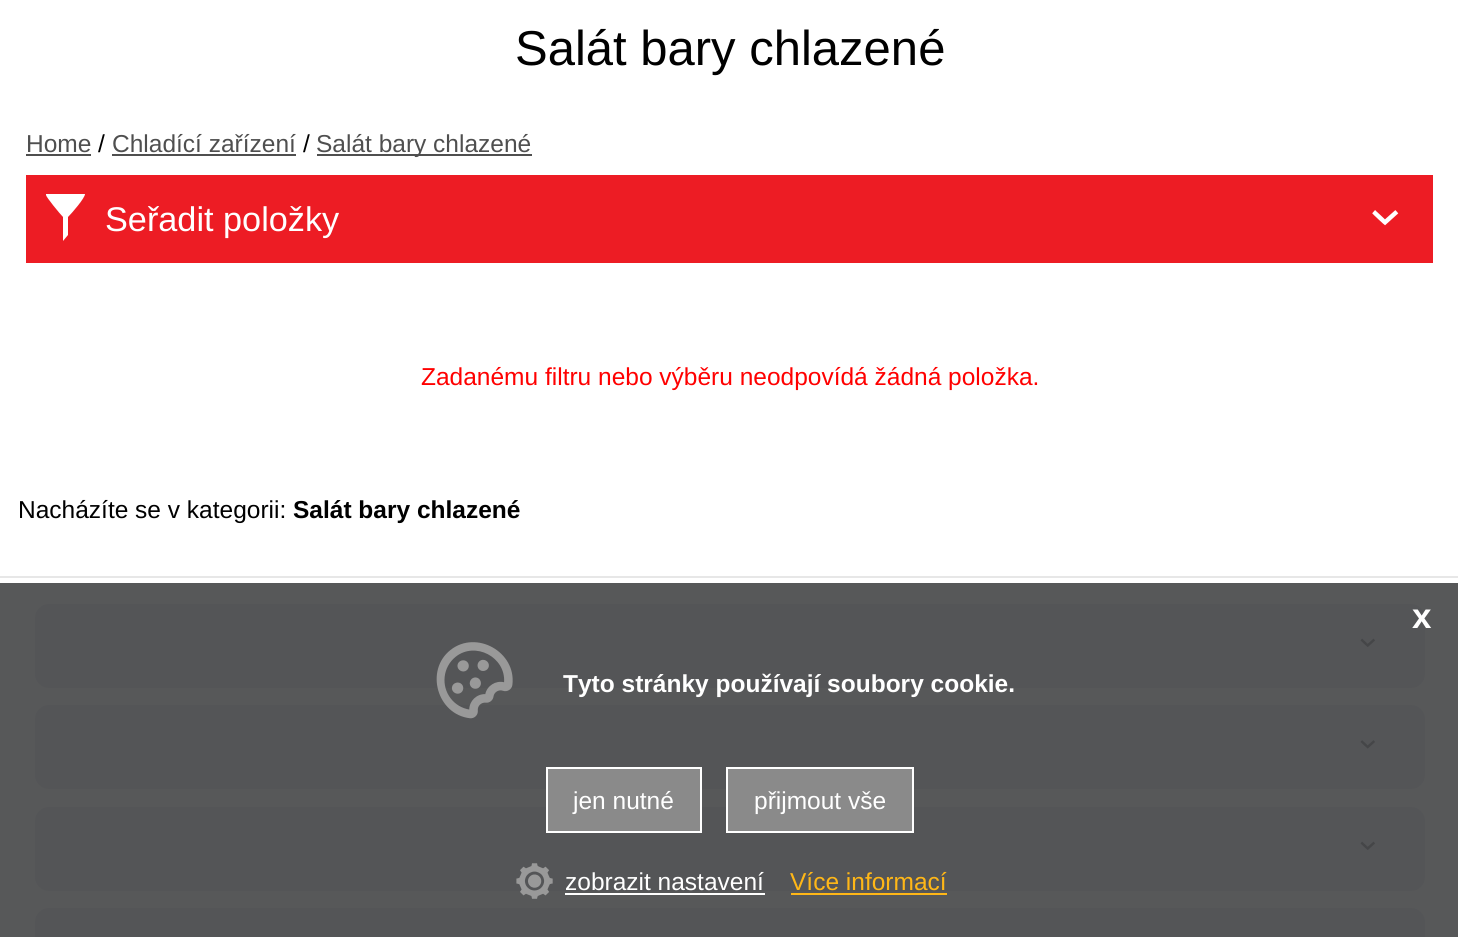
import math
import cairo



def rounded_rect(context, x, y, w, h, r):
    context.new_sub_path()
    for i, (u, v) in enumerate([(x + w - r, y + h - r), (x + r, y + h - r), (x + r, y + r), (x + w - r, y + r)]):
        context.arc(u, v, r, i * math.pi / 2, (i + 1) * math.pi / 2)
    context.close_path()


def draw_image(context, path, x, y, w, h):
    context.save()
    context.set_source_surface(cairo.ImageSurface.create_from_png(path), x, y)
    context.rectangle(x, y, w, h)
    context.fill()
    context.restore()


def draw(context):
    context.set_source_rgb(1, 1, 1)
    context.paint()
    context.set_source_rgb(87 / 255, 88 / 255, 89 / 255)
    context.rectangle(0, 583, 1458, 354)
    context.fill()
    context.set_source_rgb(79 / 255, 79 / 255, 79 / 255)
    context.rectangle(26, 154, 65, 2)
    context.fill()
    context.rectangle(112, 154, 184, 2)
    context.fill()
    context.rectangle(317, 154, 215, 2)
    context.fill()
    context.set_source_rgb(237 / 255, 28 / 255, 36 / 255)
    context.rectangle(26, 175, 1407, 88)
    context.fill()
    context.set_source_rgb(1, 1, 1)
    context.new_path()
    context.move_to(46, 195)
    context.line_to(46, 194)
    context.line_to(85, 194)
    context.curve_to(85, 198, 72, 213, 68, 217)
    context.line_to(68, 235)
    context.line_to(63, 241)
    context.line_to(63, 217)
    context.curve_to(60, 214, 46, 197, 46, 195)
    context.close_path()
    context.fill()
    draw_image(context, "images/1.png", 1372, 210, 27, 16)
    context.set_source_rgb(231 / 255, 231 / 255, 231 / 255)
    context.rectangle(0, 576, 1458, 2)
    context.fill()
    context.set_source_rgb(84 / 255, 85 / 255, 87 / 255)
    rounded_rect(context, 35, 604, 1390, 84, 14)
    context.fill()
    draw_image(context, "images/2.png", 1360, 638, 15, 9)
    rounded_rect(context, 35, 705, 1390, 84, 14)
    context.fill()
    draw_image(context, "images/3.png", 1360, 740, 15, 9)
    rounded_rect(context, 35, 807, 1390, 84, 14)
    context.fill()
    draw_image(context, "images/2.png", 1360, 841, 15, 9)
    rounded_rect(context, 35, 908, 1390, 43, 14)
    context.fill()
    draw_image(context, "images/4.png", 436, 642, 77, 77)
    context.set_source_rgb(138 / 255, 138 / 255, 138 / 255)
    context.rectangle(547, 768, 154, 64)
    context.fill_preserve()
    context.set_source_rgb(1, 1, 1)
    context.stroke()
    context.set_source_rgb(138 / 255, 138 / 255, 138 / 255)
    context.rectangle(727, 768, 186, 64)
    context.fill_preserve()
    context.set_source_rgb(1, 1, 1)
    context.stroke()
    draw_image(context, "images/5.png", 516, 863, 37, 36)
    context.rectangle(565, 893, 200, 2)
    context.fill()
    context.set_source_rgb(1, 183 / 255, 23 / 255)
    context.rectangle(791, 893, 156, 2)
    context.fill()
    context.select_font_face("Liberation Sans")
    context.set_font_size(49)
    context.set_source_rgb(0, 0, 0)
    context.move_to(515, 65)
    context.show_text("Salát bary chlazené")
    context.set_font_size(24.5)
    context.set_source_rgb(79 / 255, 79 / 255, 79 / 255)
    context.move_to(26, 152)
    context.show_text("Home")
    context.set_source_rgb(0, 0, 0)
    context.move_to(98, 152)
    context.show_text("/")
    context.set_source_rgb(79 / 255, 79 / 255, 79 / 255)
    context.move_to(112, 152)
    context.show_text("Chladící zařízení")
    context.set_source_rgb(0, 0, 0)
    context.move_to(303, 152)
    context.show_text("/")
    context.set_source_rgb(79 / 255, 79 / 255, 79 / 255)
    context.move_to(316, 152)
    context.show_text("Salát bary chlazené")
    context.set_font_size(34.25)
    context.set_source_rgb(1, 1, 1)
    context.move_to(105, 231)
    context.show_text("Seřadit položky")
    context.set_font_size(24.5)
    context.set_source_rgb(1, 0, 0)
    context.move_to(421, 385)
    context.show_text("Zadanému filtru nebo výběru neodpovídá žádná položka.")
    context.set_source_rgb(0, 0, 0)
    context.move_to(18, 518)
    context.show_text("Nacházíte se v kategorii:")
    context.select_font_face("Liberation Sans", cairo.FontSlant.NORMAL, cairo.FontWeight.BOLD)
    context.move_to(293, 518)
    context.show_text("Salát bary chlazené")
    context.set_font_size(35)
    context.set_source_rgb(1, 1, 1)
    context.move_to(1412, 628)
    context.show_text("x")
    context.set_font_size(24.5)
    context.move_to(563, 692)
    context.show_text("Tyto stránky používají soubory cookie.")
    context.select_font_face("Liberation Sans")
    context.move_to(573, 809)
    context.show_text("jen nutné")
    context.move_to(754, 809)
    context.show_text("přijmout vše")
    context.move_to(565, 890)
    context.show_text("zobrazit nastavení")
    context.set_source_rgb(1, 183 / 255, 23 / 255)
    context.move_to(790, 890)
    context.show_text("Více informací")


surface = cairo.ImageSurface(cairo.Format.RGB24, 1458, 937)
context = cairo.Context(surface)
options = cairo.FontOptions()
options.set_hint_metrics(cairo.HintMetrics.OFF)
options.set_hint_style(cairo.HintStyle.NONE)
context.set_font_options(options)
context.set_miter_limit(4)
draw(context)
surface.write_to_png("out.png")
